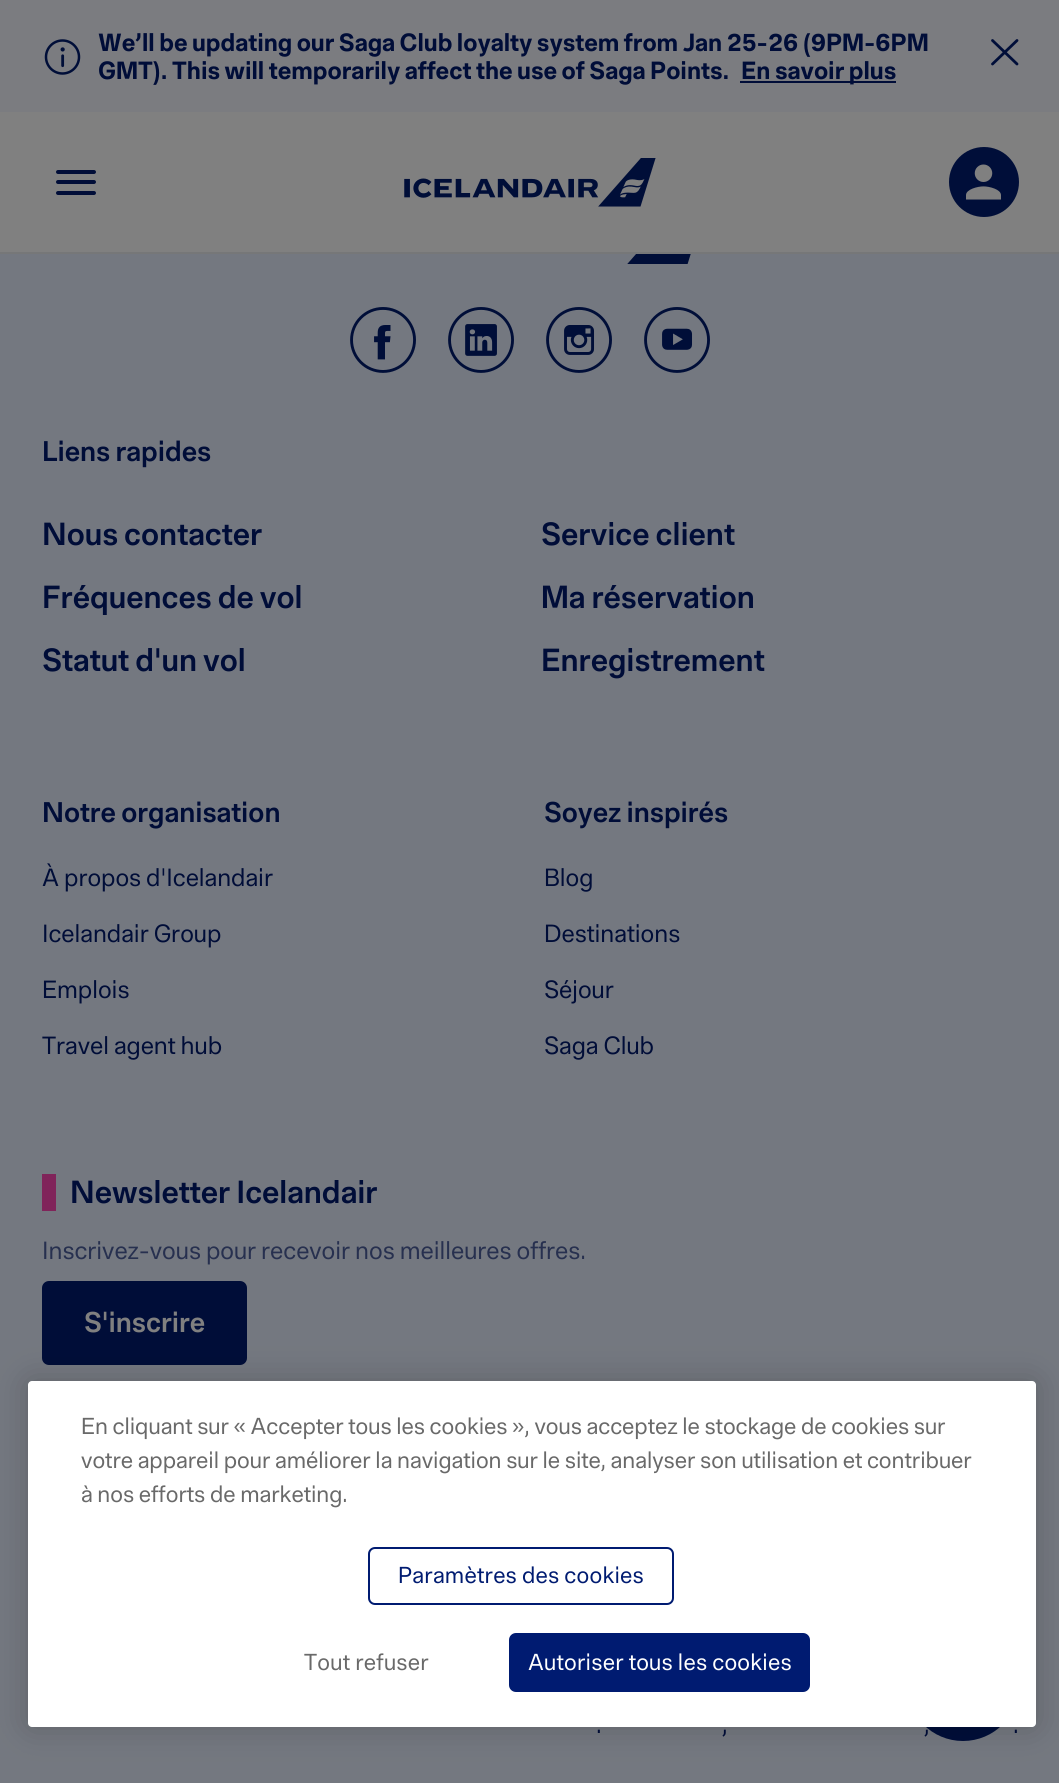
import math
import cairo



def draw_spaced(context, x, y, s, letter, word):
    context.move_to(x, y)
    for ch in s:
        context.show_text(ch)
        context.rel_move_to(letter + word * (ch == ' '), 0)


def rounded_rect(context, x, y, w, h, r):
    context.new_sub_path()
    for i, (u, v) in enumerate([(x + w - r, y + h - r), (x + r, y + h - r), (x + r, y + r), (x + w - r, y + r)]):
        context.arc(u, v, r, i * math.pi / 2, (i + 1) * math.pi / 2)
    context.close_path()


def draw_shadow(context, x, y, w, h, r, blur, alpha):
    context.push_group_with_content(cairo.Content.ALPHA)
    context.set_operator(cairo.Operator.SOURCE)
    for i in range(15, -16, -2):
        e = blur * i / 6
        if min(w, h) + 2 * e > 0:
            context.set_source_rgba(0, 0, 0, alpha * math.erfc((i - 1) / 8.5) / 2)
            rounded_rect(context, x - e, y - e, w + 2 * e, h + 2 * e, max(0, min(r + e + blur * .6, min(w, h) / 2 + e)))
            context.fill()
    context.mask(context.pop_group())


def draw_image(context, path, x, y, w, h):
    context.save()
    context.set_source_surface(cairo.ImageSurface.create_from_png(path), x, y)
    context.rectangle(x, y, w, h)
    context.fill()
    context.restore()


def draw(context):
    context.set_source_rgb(116 / 255, 120 / 255, 128 / 255)
    context.paint()
    context.set_source_rgb(128 / 255, 128 / 255, 128 / 255)
    context.rectangle(0, 112, 1059, 140)
    context.fill()
    context.set_source_rgb(123 / 255, 124 / 255, 128 / 255)
    context.rectangle(0, 0, 1059, 112)
    context.fill()
    draw_image(context, "images/1.png", 44, 39, 37, 36)
    context.set_source_rgb(0, 13 / 255, 56 / 255)
    context.rectangle(740, 81, 156, 2)
    context.fill()
    context.new_path()
    context.move_to(992.5, 64)
    context.line_to(1017, 40.5)
    context.move_to(992.5, 40.5)
    context.line_to(1017, 64)
    context.set_source_rgb(0, 14 / 255, 57 / 255)
    context.set_line_width(2.8)
    context.set_line_cap(cairo.LineCap.ROUND)
    context.stroke()
    context.set_source_rgb(118 / 255, 119 / 255, 120 / 255)
    context.rectangle(0, 252, 1059, 2)
    context.fill()
    context.set_source_rgb(0, 13 / 255, 56 / 255)
    rounded_rect(context, 56, 170, 40, 4, 2)
    context.fill()
    rounded_rect(context, 56, 180, 40, 4, 2)
    context.fill()
    rounded_rect(context, 56, 191, 40, 4, 2)
    context.fill()
    draw_image(context, "images/2.png", 404, 158, 252, 49)
    context.set_source_rgb(0, 14 / 255, 57 / 255)
    context.arc(984, 182, 35, 0, 2 * math.pi)
    context.fill()
    draw_image(context, "images/3.png", 966, 164, 35, 36)
    draw_image(context, "images/4.png", 627, 254, 64, 10)
    draw_image(context, "images/5.png", 350, 307, 66, 66)
    draw_image(context, "images/6.png", 448, 307, 66, 66)
    draw_image(context, "images/7.png", 546, 307, 66, 66)
    draw_image(context, "images/8.png", 644, 307, 66, 66)
    context.set_source_rgb(128 / 255, 36 / 255, 90 / 255)
    context.rectangle(42, 1174, 14, 37)
    context.fill()
    context.set_source_rgb(0, 13 / 255, 56 / 255)
    rounded_rect(context, 42, 1281, 205, 84, 7)
    context.fill()
    context.select_font_face("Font", cairo.FontSlant.NORMAL, cairo.FontWeight.BOLD)
    context.set_font_size(24.5)
    context.move_to(98, 51)
    context.show_text("We’ll be updating our Saga Club loyalty system from Jan 25-26 (9PM-6PM")
    context.move_to(98, 79)
    context.show_text("GMT). This will temporarily affect the use of Saga Points.")
    context.move_to(741, 79)
    context.show_text("En savoir plus")
    context.select_font_face("Font SemiBold")
    context.set_font_size(28)
    context.move_to(42, 461)
    context.show_text("Liens rapides")
    context.set_font_size(31.5)
    context.move_to(42, 545)
    context.show_text("Nous contacter")
    context.move_to(541, 545)
    context.show_text("Service client")
    context.move_to(42, 608)
    context.show_text("Fréquences de vol")
    context.move_to(541, 608)
    context.show_text("Ma réservation")
    context.move_to(42, 671)
    context.show_text("Statut d'un vol")
    context.move_to(541, 671)
    context.show_text("Enregistrement")
    context.set_font_size(28)
    context.move_to(42, 822)
    context.show_text("Notre organisation")
    context.select_font_face("Font")
    context.set_font_size(24.5)
    context.move_to(42, 886)
    context.show_text("À propos d'Icelandair")
    context.move_to(42, 942)
    context.show_text("Icelandair Group")
    context.move_to(42, 998)
    context.show_text("Emplois")
    context.move_to(42, 1054)
    context.show_text("Travel agent hub")
    context.select_font_face("Font SemiBold")
    context.set_font_size(28)
    context.move_to(544, 822)
    context.show_text("Soyez inspirés")
    context.select_font_face("Font")
    context.set_font_size(24.5)
    context.move_to(544, 886)
    context.show_text("Blog")
    context.move_to(544, 942)
    context.show_text("Destinations")
    context.move_to(544, 998)
    context.show_text("Séjour")
    context.move_to(544, 1054)
    context.show_text("Saga Club")
    context.select_font_face("Font SemiBold")
    context.set_font_size(31.5)
    context.move_to(70, 1203)
    context.show_text("Newsletter Icelandair")
    context.select_font_face("Font")
    context.set_font_size(24.5)
    context.set_source_rgb(39 / 255, 48 / 255, 79 / 255)
    context.move_to(42, 1259)
    context.show_text("Inscrivez-vous pour recevoir nos meilleures offres.")
    context.select_font_face("Font SemiBold")
    context.set_font_size(28)
    context.set_source_rgb(128 / 255, 128 / 255, 128 / 255)
    context.move_to(84, 1332)
    context.show_text("S'inscrire")
    context.select_font_face("Font")
    context.set_font_size(24.5)
    context.set_source_rgb(0, 13 / 255, 56 / 255)
    context.move_to(596, 1733)
    context.show_text(".")
    context.move_to(722, 1733)
    context.show_text(",")
    context.move_to(924, 1733)
    context.show_text(",")
    context.move_to(1013, 1733)
    context.show_text(".")
    context.set_source_rgb(0, 14 / 255, 57 / 255)
    context.new_path()
    context.arc(963, 1685, 56, 0, 2 * math.pi)
    context.fill()
    context.set_source_rgb(0, 0, 0)
    draw_shadow(context, 28, 1381, 1008, 346, 4, 16, 0.2)
    context.set_source_rgb(1, 1, 1)
    rounded_rect(context, 28, 1381, 1008, 346, 4)
    context.fill()
    rounded_rect(context, 369, 1548, 304, 56, 6)
    context.set_source_rgb(0, 27 / 255, 113 / 255)
    context.set_line_width(2)
    context.set_line_cap(cairo.LineCap.BUTT)
    context.stroke()
    context.set_font_size(22.75)
    draw_spaced(context, 398, 1583, "Paramètres des cookies", 0.25, 0)
    rounded_rect(context, 510, 1634, 299, 57, 6)
    context.fill_preserve()
    context.stroke()
    context.set_source_rgb(1, 1, 1)
    draw_spaced(context, 528, 1670, "Autoriser tous les cookies", 0.25, 0)
    context.set_source_rgb(105 / 255, 105 / 255, 105 / 255)
    draw_spaced(context, 304, 1670, "Tout refuser", 0.25, 0)
    context.move_to(81, 1502)
    context.show_text("à nos efforts de marketing.")
    context.move_to(81, 1468)
    context.show_text("votre appareil pour améliorer la navigation sur le site, analyser son utilisation et contribuer")
    context.move_to(81, 1434)
    context.show_text("En cliquant sur « Accepter tous les cookies », vous acceptez le stockage de cookies sur")


surface = cairo.ImageSurface(cairo.Format.RGB24, 1059, 1783)
context = cairo.Context(surface)
options = cairo.FontOptions()
options.set_hint_metrics(cairo.HintMetrics.OFF)
options.set_hint_style(cairo.HintStyle.NONE)
context.set_font_options(options)
context.set_miter_limit(4)
draw(context)
surface.write_to_png("out.png")
